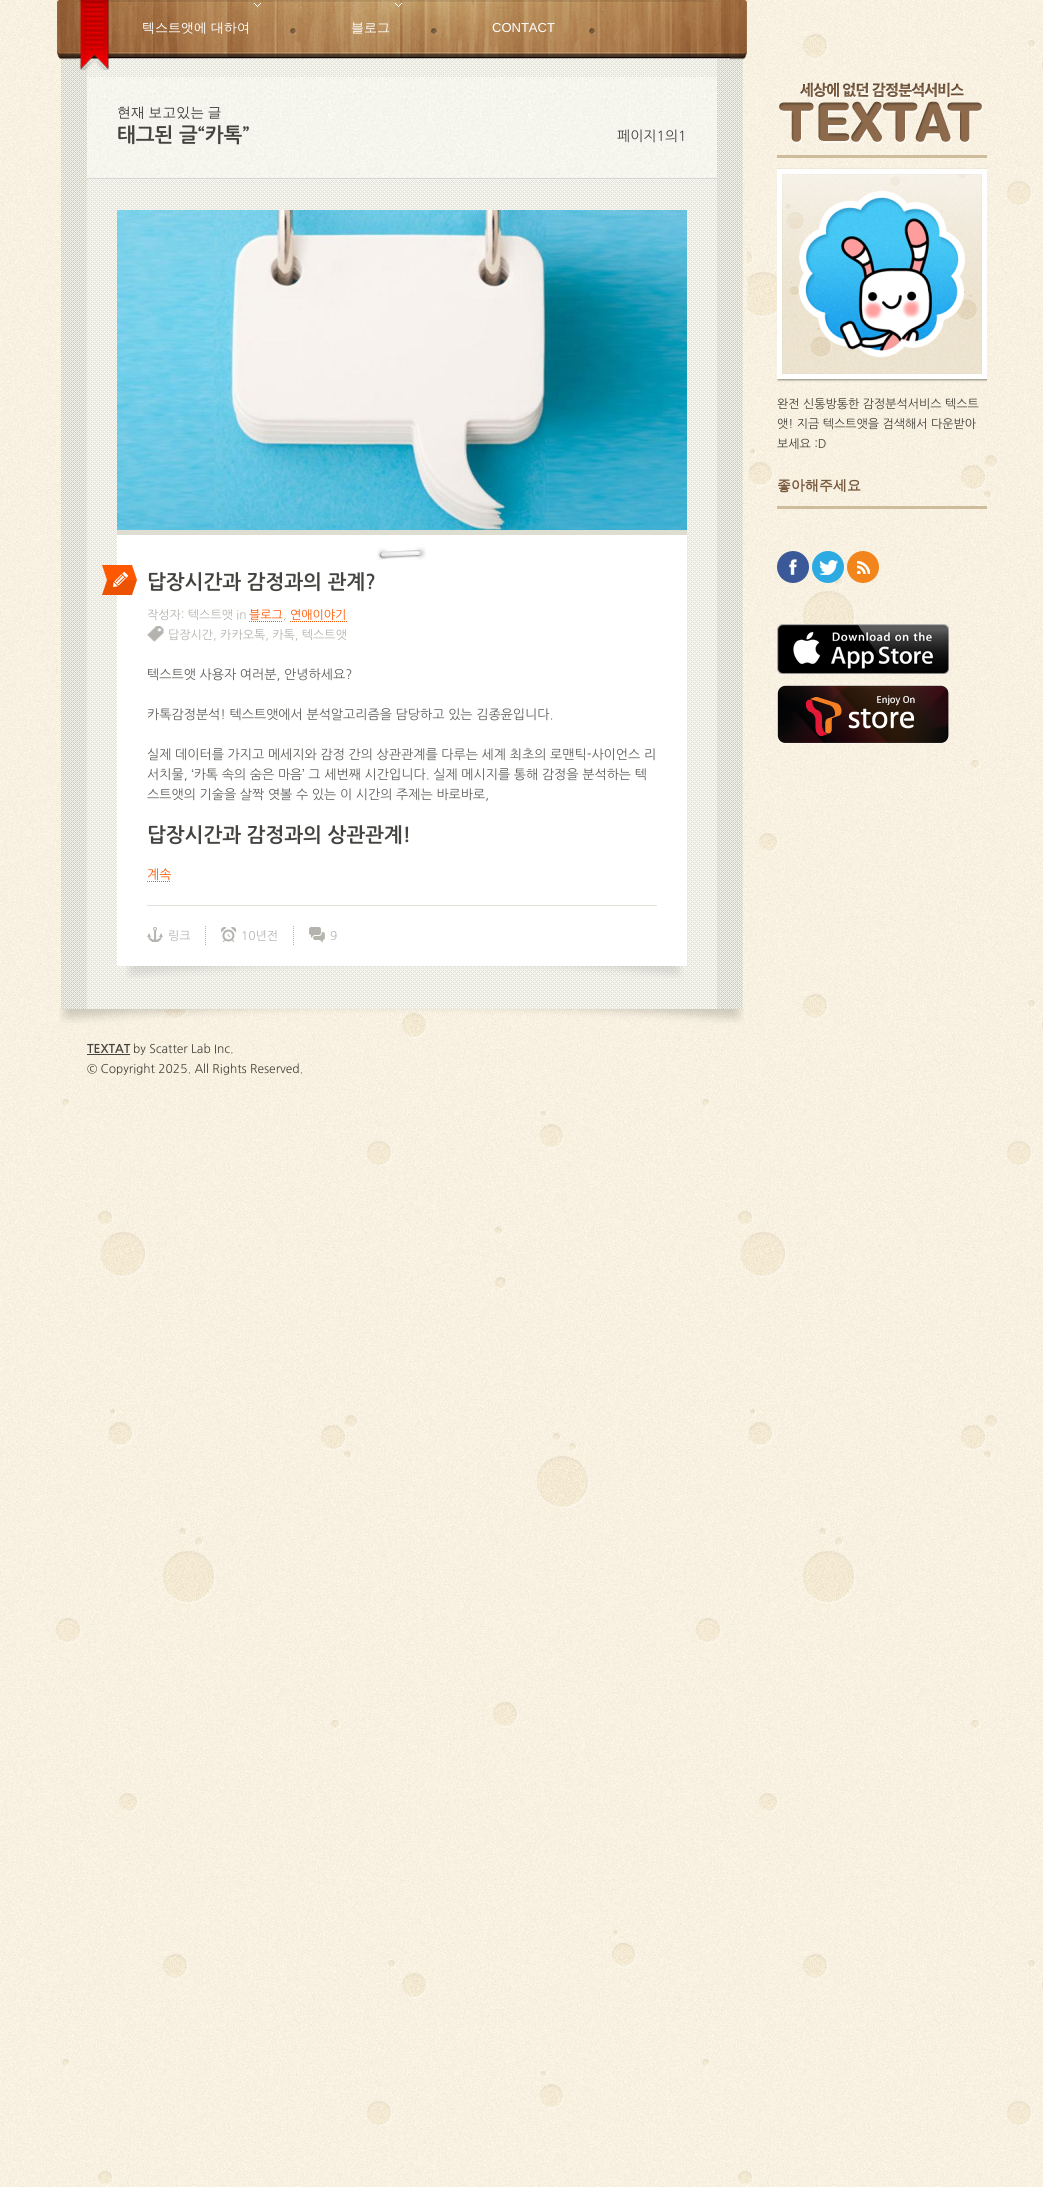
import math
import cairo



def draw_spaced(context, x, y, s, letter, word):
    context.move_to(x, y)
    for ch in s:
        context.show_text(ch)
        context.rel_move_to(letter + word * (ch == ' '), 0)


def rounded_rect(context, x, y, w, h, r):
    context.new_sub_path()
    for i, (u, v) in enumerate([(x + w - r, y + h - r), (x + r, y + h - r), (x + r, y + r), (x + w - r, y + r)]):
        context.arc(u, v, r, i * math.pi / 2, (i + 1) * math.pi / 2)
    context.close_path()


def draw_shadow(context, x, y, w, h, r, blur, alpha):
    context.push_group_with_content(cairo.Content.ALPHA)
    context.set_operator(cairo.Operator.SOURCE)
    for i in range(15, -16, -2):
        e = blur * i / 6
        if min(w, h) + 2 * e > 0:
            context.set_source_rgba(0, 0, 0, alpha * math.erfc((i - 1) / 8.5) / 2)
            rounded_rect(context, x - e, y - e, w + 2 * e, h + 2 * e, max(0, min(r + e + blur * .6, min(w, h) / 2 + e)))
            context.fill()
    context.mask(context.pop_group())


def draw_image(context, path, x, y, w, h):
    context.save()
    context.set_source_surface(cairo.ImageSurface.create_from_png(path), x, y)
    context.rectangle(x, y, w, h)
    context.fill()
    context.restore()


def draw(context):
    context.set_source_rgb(1, 1, 1)
    context.paint()
    draw_image(context, "images/1.png", 0, 0, 1043, 2187)
    draw_image(context, "images/2.png", 59, 1009, 685, 14)
    draw_image(context, "images/3.png", 57, 0, 690, 1009)
    draw_image(context, "images/4.png", 57, 0, 690, 70)
    draw_image(context, "images/5.png", 290, 28, 6, 6)
    draw_image(context, "images/6.png", 254, 3, 7, 4)
    draw_image(context, "images/7.png", 431, 28, 6, 6)
    draw_image(context, "images/8.png", 395, 3, 7, 4)
    draw_image(context, "images/9.png", 589, 28, 6, 6)
    draw_image(context, "images/10.png", 87, 178, 630, 2)
    draw_image(context, "images/11.png", 87, 77, 630, 101)
    draw_image(context, "images/12.png", 126, 966, 557, 12)
    draw_image(context, "images/13.png", 117, 210, 570, 320)
    context.set_source_rgb(1, 1, 1)
    context.rectangle(117, 535, 570, 431)
    context.fill()
    draw_image(context, "images/14.png", 377, 547, 49, 13)
    context.set_source_rgb(222 / 255, 221 / 255, 210 / 255)
    context.rectangle(117, 530, 570, 5)
    context.fill()
    draw_image(context, "images/15.png", 102, 565, 35, 30)
    context.new_path()
    context.move_to(249, 621.5)
    context.line_to(283, 621.5)
    context.set_source_rgb(1, 88 / 255, 0)
    context.set_line_width(1)
    context.set_dash([1, 1])
    context.stroke()
    context.new_path()
    context.move_to(290, 621.5)
    context.line_to(347, 621.5)
    context.stroke()
    draw_image(context, "images/16.png", 147, 626, 17, 16)
    context.new_path()
    context.move_to(147, 881.5)
    context.line_to(171, 881.5)
    context.stroke()
    context.set_source_rgb(226 / 255, 225 / 255, 217 / 255)
    context.rectangle(147, 905, 510, 1)
    context.fill()
    context.new_path()
    context.move_to(205.5, 926)
    context.line_to(205.5, 946)
    context.set_source_rgb(180 / 255, 179 / 255, 174 / 255)
    context.stroke()
    draw_image(context, "images/17.png", 147, 927, 16, 15)
    draw_image(context, "images/18.png", 221, 927, 16, 15)
    context.new_path()
    context.move_to(293.5, 926)
    context.line_to(293.5, 946)
    context.stroke()
    draw_image(context, "images/19.png", 309, 927, 16, 15)
    draw_image(context, "images/20.png", 779, 82, 204, 62)
    context.set_source_rgb(205 / 255, 189 / 255, 157 / 255)
    context.rectangle(777, 155, 210, 3)
    context.fill()
    context.save()
    context.rectangle(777, 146, 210, 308)
    context.clip()
    context.set_source_rgb(135 / 255, 134 / 255, 121 / 255)
    draw_shadow(context, 778, 170, 210, 210, 0, 1, 1)
    context.restore()
    context.rectangle(779.5, 171.5, 205, 205)
    context.set_source_rgb(1, 1, 1)
    context.set_line_width(5)
    context.set_dash([])
    context.stroke()
    draw_image(context, "images/21.png", 782, 174, 200, 200)
    context.set_source_rgb(205 / 255, 189 / 255, 157 / 255)
    context.rectangle(777, 506, 210, 3)
    context.fill()
    draw_image(context, "images/22.png", 777, 551, 32, 32)
    draw_image(context, "images/23.png", 812, 551, 32, 32)
    draw_image(context, "images/24.png", 847, 551, 32, 32)
    draw_image(context, "images/25.png", 777, 624, 172, 50)
    draw_image(context, "images/26.png", 777, 685, 172, 59)
    context.set_source_rgb(68 / 255, 67 / 255, 63 / 255)
    context.rectangle(87, 1054, 43, 1)
    context.fill()
    context.select_font_face("WenQuanYi Zen Hei Medium")
    context.set_font_size(13)
    context.set_source_rgb(1, 1, 1)
    context.move_to(142, 32)
    context.show_text("텍스트앳에 대하여")
    context.move_to(351, 32)
    context.show_text("블로그")
    context.select_font_face("Liberation Sans")
    context.move_to(492, 32)
    context.show_text("CONTACT")
    context.select_font_face("WenQuanYi Zen Hei Medium")
    context.set_font_size(14)
    context.set_source_rgb(68 / 255, 67 / 255, 63 / 255)
    draw_spaced(context, 117, 117, "현재 보고있는 글", 0, -1)
    context.select_font_face("NanumGothic", cairo.FontSlant.NORMAL, cairo.FontWeight.BOLD)
    context.set_font_size(20)
    context.move_to(117, 142)
    context.show_text("태그된 글“카톡”")
    context.select_font_face("NanumGothic")
    context.set_font_size(14)
    context.move_to(617, 141)
    context.show_text("페이지1의1")
    context.select_font_face("NanumGothic", cairo.FontSlant.NORMAL, cairo.FontWeight.BOLD)
    context.set_font_size(20)
    context.move_to(147, 589)
    context.show_text("답장시간과 감정과의 관계?")
    context.select_font_face("NanumGothic")
    context.set_font_size(12)
    context.set_source_rgb(180 / 255, 179 / 255, 174 / 255)
    context.move_to(147, 619)
    context.show_text("작성자: 텍스트앳 in")
    context.set_source_rgb(1, 88 / 255, 0)
    context.move_to(249, 619)
    context.show_text("블로그")
    context.set_source_rgb(180 / 255, 179 / 255, 174 / 255)
    context.move_to(283, 619)
    context.show_text(",")
    context.set_source_rgb(1, 88 / 255, 0)
    context.move_to(290, 619)
    context.show_text("연애이야기")
    context.set_source_rgb(180 / 255, 179 / 255, 174 / 255)
    context.move_to(168, 639)
    context.show_text("답장시간, 카카오톡, 카톡, 텍스트앳")
    context.set_font_size(13)
    context.set_source_rgb(94 / 255, 94 / 255, 90 / 255)
    context.move_to(147, 679)
    context.show_text("텍스트앳 사용자 여러분, 안녕하세요?")
    context.move_to(147, 719)
    context.show_text("카톡감정분석! 텍스트앳에서 분석알고리즘을 담당하고 있는 김종윤입니다.")
    context.move_to(147, 759)
    context.show_text("실제 데이터를 가지고 메세지와 감정 간의 상관관계를 다루는 세계 최초의 로맨틱-사이언스 리")
    context.move_to(147, 779)
    context.show_text("서치물, ‘카톡 속의 숨은 마음’ 그 세번째 시간입니다. 실제 메시지를 통해 감정을 분석하는 텍")
    context.move_to(147, 799)
    context.show_text("스트앳의 기술을 살짝 엿볼 수 있는 이 시간의 주제는 바로바로,")
    context.select_font_face("NanumGothic", cairo.FontSlant.NORMAL, cairo.FontWeight.BOLD)
    context.set_font_size(20)
    context.set_source_rgb(68 / 255, 67 / 255, 63 / 255)
    context.move_to(147, 842)
    context.show_text("답장시간과 감정과의 상관관계!")
    context.select_font_face("NanumGothic")
    context.set_font_size(13)
    context.set_source_rgb(1, 88 / 255, 0)
    context.move_to(147, 879)
    context.show_text("계속")
    context.set_font_size(12)
    context.set_source_rgb(180 / 255, 179 / 255, 174 / 255)
    context.move_to(168, 940)
    context.show_text("링크")
    context.move_to(241, 940)
    context.show_text("10년전")
    context.move_to(330, 940)
    context.show_text("9")
    context.set_source_rgb(65 / 255, 64 / 255, 57 / 255)
    context.move_to(777, 408)
    context.show_text("완전 신통방통한 감정분석서비스 텍스트")
    context.move_to(777, 428)
    context.show_text("앳! 지금 텍스트앳을 검색해서 다운받아")
    context.move_to(777, 448)
    context.show_text("보세요 :D")
    context.select_font_face("WenQuanYi Zen Hei", cairo.FontSlant.NORMAL, cairo.FontWeight.BOLD)
    context.set_font_size(14)
    context.set_source_rgb(120 / 255, 90 / 255, 63 / 255)
    context.move_to(777, 490)
    context.show_text("좋아해주세요")
    context.select_font_face("NanumGothic", cairo.FontSlant.NORMAL, cairo.FontWeight.BOLD)
    context.set_font_size(12)
    context.set_source_rgb(68 / 255, 67 / 255, 63 / 255)
    context.move_to(87, 1053)
    context.show_text("TEXTAT")
    context.select_font_face("NanumGothic")
    context.set_source_rgb(65 / 255, 64 / 255, 57 / 255)
    context.move_to(133, 1053)
    context.show_text("by Scatter Lab Inc.")
    context.move_to(87, 1073)
    context.show_text("© Copyright 2025. All Rights Reserved.")


surface = cairo.ImageSurface(cairo.Format.RGB24, 1043, 2187)
context = cairo.Context(surface)
options = cairo.FontOptions()
options.set_hint_metrics(cairo.HintMetrics.OFF)
options.set_hint_style(cairo.HintStyle.NONE)
context.set_font_options(options)
context.set_miter_limit(4)
draw(context)
surface.write_to_png("out.png")
